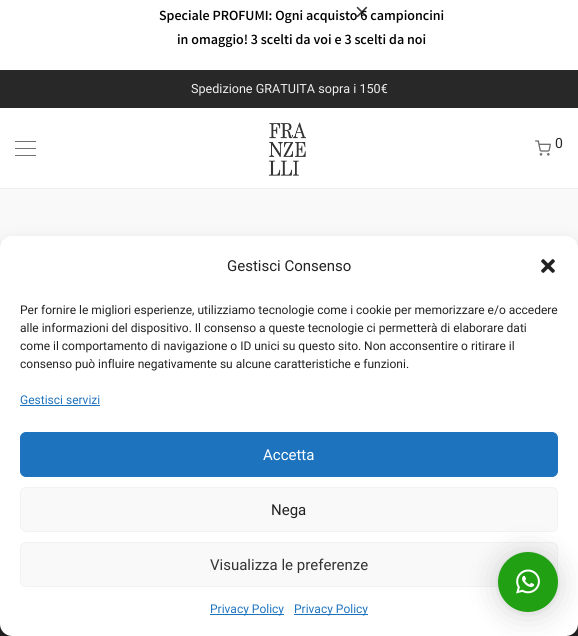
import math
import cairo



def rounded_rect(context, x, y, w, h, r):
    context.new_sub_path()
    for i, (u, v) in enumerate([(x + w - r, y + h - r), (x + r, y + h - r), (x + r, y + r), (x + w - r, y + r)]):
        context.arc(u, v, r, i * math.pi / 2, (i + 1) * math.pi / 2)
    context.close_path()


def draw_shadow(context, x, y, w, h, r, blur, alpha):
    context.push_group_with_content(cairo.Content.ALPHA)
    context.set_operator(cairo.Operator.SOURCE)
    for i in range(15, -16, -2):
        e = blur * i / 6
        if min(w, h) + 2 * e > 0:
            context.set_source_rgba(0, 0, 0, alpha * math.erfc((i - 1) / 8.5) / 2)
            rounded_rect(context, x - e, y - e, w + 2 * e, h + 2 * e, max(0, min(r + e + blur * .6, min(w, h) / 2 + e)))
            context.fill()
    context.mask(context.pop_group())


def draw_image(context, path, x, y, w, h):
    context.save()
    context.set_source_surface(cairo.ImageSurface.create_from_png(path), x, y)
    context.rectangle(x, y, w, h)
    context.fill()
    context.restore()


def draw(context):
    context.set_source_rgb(1, 1, 1)
    context.paint()
    context.set_source_rgb(249 / 255, 249 / 255, 249 / 255)
    context.rectangle(0, 189, 578, 59)
    context.fill()
    context.set_source_rgb(40 / 255, 40 / 255, 40 / 255)
    context.rectangle(0, 70, 578, 38)
    context.fill()
    context.set_source_rgb(238 / 255, 238 / 255, 238 / 255)
    context.rectangle(0, 188, 578, 1)
    context.fill()
    context.set_source_rgb(112 / 255, 112 / 255, 112 / 255)
    context.rectangle(15, 141, 21, 1)
    context.fill()
    context.rectangle(15, 148, 21, 1)
    context.fill()
    context.rectangle(15, 155, 21, 1)
    context.fill()
    draw_image(context, "images/2.png", 268, 122, 38, 54)
    draw_image(context, "images/3.png", 535, 140, 16, 16)
    context.set_source_rgb(40 / 255, 40 / 255, 40 / 255)
    context.rectangle(0, 624, 578, 12)
    context.fill()
    context.set_source_rgb(0, 0, 0)
    draw_shadow(context, 0, 242, 578, 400, 12, 3, 0.23)
    draw_shadow(context, 0, 246, 578, 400, 12, 10, 0.19)
    context.set_source_rgb(1, 1, 1)
    rounded_rect(context, 0, 236, 578, 400, 12)
    context.fill()
    context.set_source_rgb(249 / 255, 249 / 255, 249 / 255)
    rounded_rect(context, 20.5, 487.5, 537, 44, 5.5)
    context.fill_preserve()
    context.set_source_rgb(242 / 255, 242 / 255, 242 / 255)
    context.set_line_width(1)
    context.stroke()
    context.set_source_rgb(249 / 255, 249 / 255, 249 / 255)
    rounded_rect(context, 20.5, 542.5, 537, 44, 5.5)
    context.fill_preserve()
    context.set_source_rgb(242 / 255, 242 / 255, 242 / 255)
    context.stroke()
    context.set_source_rgb(0, 0, 0)
    draw_shadow(context, 498, 554, 60, 60, 30, 16, 0.16)
    draw_shadow(context, 498, 553, 60, 60, 30, 3, 0.06)
    context.set_source_rgb(33 / 255, 160 / 255, 19 / 255)
    context.arc(528, 582, 30, 0, 2 * math.pi)
    context.fill()
    draw_image(context, "images/4.png", 516, 569, 24, 25)
    draw_image(context, "images/5.png", 541, 259, 14, 14)
    context.set_source_rgb(30 / 255, 115 / 255, 190 / 255)
    context.rectangle(20, 405, 80, 1)
    context.fill()
    rounded_rect(context, 20.5, 432.5, 537, 44, 5.5)
    context.fill_preserve()
    context.stroke()
    context.rectangle(210, 614, 74, 1)
    context.fill()
    context.rectangle(294, 614, 74, 1)
    context.fill()
    context.select_font_face("Varta Light")
    context.set_font_size(14)
    context.set_source_rgb(0, 0, 0)
    context.move_to(159, 20)
    context.show_text("Speciale PROFUMI: Ogni acquisto 6 campioncini")
    draw_image(context, "images/1.png", 356, 6, 12, 12)
    context.move_to(177, 44)
    context.show_text("in omaggio! 3 scelti da voi e 3 scelti da noi")
    context.select_font_face("Roboto")
    context.set_font_size(12.6)
    context.set_source_rgb(238 / 255, 238 / 255, 238 / 255)
    context.move_to(191, 93)
    context.show_text("Spedizione GRATUITA sopra i 150€")
    context.set_font_size(14)
    context.set_source_rgb(40 / 255, 40 / 255, 40 / 255)
    context.move_to(555, 148)
    context.show_text("0")
    context.set_font_size(15)
    context.set_source_rgb(34 / 255, 34 / 255, 34 / 255)
    context.move_to(227, 271)
    context.show_text("Gestisci Consenso")
    context.set_font_size(12)
    context.move_to(20, 314)
    context.show_text("Per fornire le migliori esperienze, utilizziamo tecnologie come i cookie per memorizzare e/o accedere")
    context.move_to(20, 332)
    context.show_text("alle informazioni del dispositivo. Il consenso a queste tecnologie ci permetterà di elaborare dati")
    context.move_to(20, 350)
    context.show_text("come il comportamento di navigazione o ID unici su questo sito. Non acconsentire o ritirare il")
    context.move_to(20, 368)
    context.show_text("consenso può influire negativamente su alcune caratteristiche e funzioni.")
    context.set_source_rgb(30 / 255, 115 / 255, 190 / 255)
    context.move_to(20, 404)
    context.show_text("Gestisci servizi")
    context.set_font_size(15)
    context.set_source_rgb(1, 1, 1)
    context.move_to(263, 460)
    context.show_text("Accetta")
    context.set_source_rgb(34 / 255, 34 / 255, 34 / 255)
    context.move_to(271, 515)
    context.show_text("Nega")
    context.set_source_rgb(51 / 255, 51 / 255, 51 / 255)
    context.move_to(210, 570)
    context.show_text("Visualizza le preferenze")
    context.set_font_size(12)
    context.set_source_rgb(30 / 255, 115 / 255, 190 / 255)
    context.move_to(210, 613)
    context.show_text("Privacy Policy")
    context.move_to(294, 613)
    context.show_text("Privacy Policy")


surface = cairo.ImageSurface(cairo.Format.RGB24, 578, 636)
context = cairo.Context(surface)
options = cairo.FontOptions()
options.set_hint_metrics(cairo.HintMetrics.OFF)
options.set_hint_style(cairo.HintStyle.NONE)
context.set_font_options(options)
context.set_miter_limit(4)
draw(context)
surface.write_to_png("out.png")
